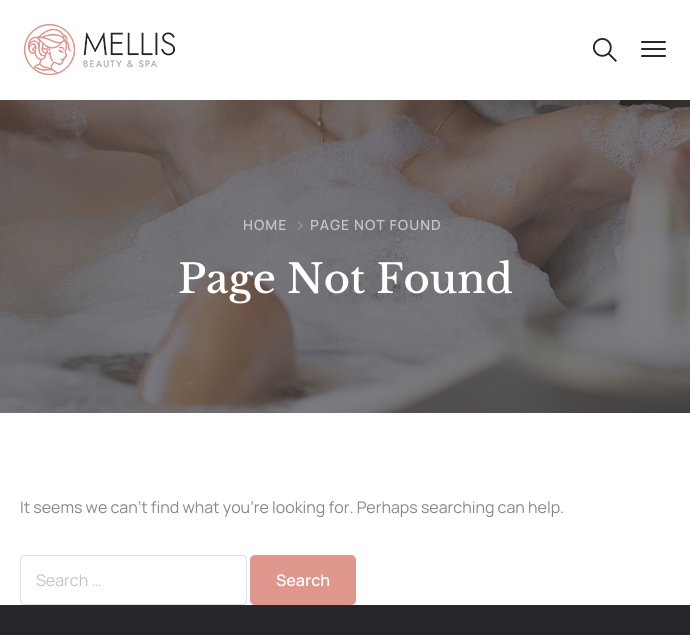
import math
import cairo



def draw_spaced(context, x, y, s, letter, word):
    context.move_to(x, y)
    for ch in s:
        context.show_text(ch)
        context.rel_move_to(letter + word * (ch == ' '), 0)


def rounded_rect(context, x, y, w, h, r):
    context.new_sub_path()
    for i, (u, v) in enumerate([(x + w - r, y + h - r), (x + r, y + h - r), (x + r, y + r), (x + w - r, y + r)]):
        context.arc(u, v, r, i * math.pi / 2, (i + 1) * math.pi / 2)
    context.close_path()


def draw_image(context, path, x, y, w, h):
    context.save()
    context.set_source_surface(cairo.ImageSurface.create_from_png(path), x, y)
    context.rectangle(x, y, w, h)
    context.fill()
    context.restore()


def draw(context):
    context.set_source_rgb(1, 1, 1)
    context.paint()
    draw_image(context, "images/1.png", 24, 24, 151, 51)
    draw_image(context, "images/2.png", 593, 38, 24, 24)
    context.set_source_rgb(39 / 255, 37 / 255, 42 / 255)
    rounded_rect(context, 641, 41, 25, 2, 1)
    context.fill()
    rounded_rect(context, 641, 48, 25, 2, 1)
    context.fill()
    rounded_rect(context, 641, 55, 25, 2, 1)
    context.fill()
    draw_image(context, "images/3.png", 0, 100, 690, 313)
    draw_image(context, "images/4.png", 298, 221, 5, 9)
    rounded_rect(context, 20.5, 555.5, 226, 49, 4.5)
    context.set_source_rgb(224 / 255, 224 / 255, 224 / 255)
    context.set_line_width(1)
    context.stroke()
    context.set_source_rgb(222 / 255, 150 / 255, 141 / 255)
    rounded_rect(context, 250.5, 555.5, 105, 49, 4.5)
    context.fill_preserve()
    context.stroke()
    context.set_source_rgb(39 / 255, 37 / 255, 42 / 255)
    context.rectangle(0, 605, 690, 30)
    context.fill()
    context.select_font_face("Manrope SemiBold")
    context.set_font_size(14)
    context.set_source_rgb(196 / 255, 195 / 255, 198 / 255)
    draw_spaced(context, 243, 230, "HOME", 1, 0)
    draw_spaced(context, 310, 230, "PAGE NOT FOUND", 1, 0)
    context.select_font_face("Libre Baskerville Medium")
    context.set_font_size(40)
    context.set_source_rgb(1, 1, 1)
    context.move_to(178, 293)
    context.show_text("Page Not Found")
    context.select_font_face("Manrope")
    context.set_font_size(16)
    context.set_source_rgb(137 / 255, 134 / 255, 141 / 255)
    context.move_to(20, 513)
    context.show_text("It seems we can’t find what you’re looking for. Perhaps searching can help.")
    context.set_source_rgb(196 / 255, 195 / 255, 198 / 255)
    context.move_to(36, 586)
    context.show_text("Search …")
    context.select_font_face("Manrope SemiBold")
    context.set_source_rgb(1, 1, 1)
    context.move_to(276, 586)
    context.show_text("Search")


surface = cairo.ImageSurface(cairo.Format.RGB24, 690, 635)
context = cairo.Context(surface)
options = cairo.FontOptions()
options.set_hint_metrics(cairo.HintMetrics.OFF)
options.set_hint_style(cairo.HintStyle.NONE)
context.set_font_options(options)
context.set_miter_limit(4)
draw(context)
surface.write_to_png("out.png")
